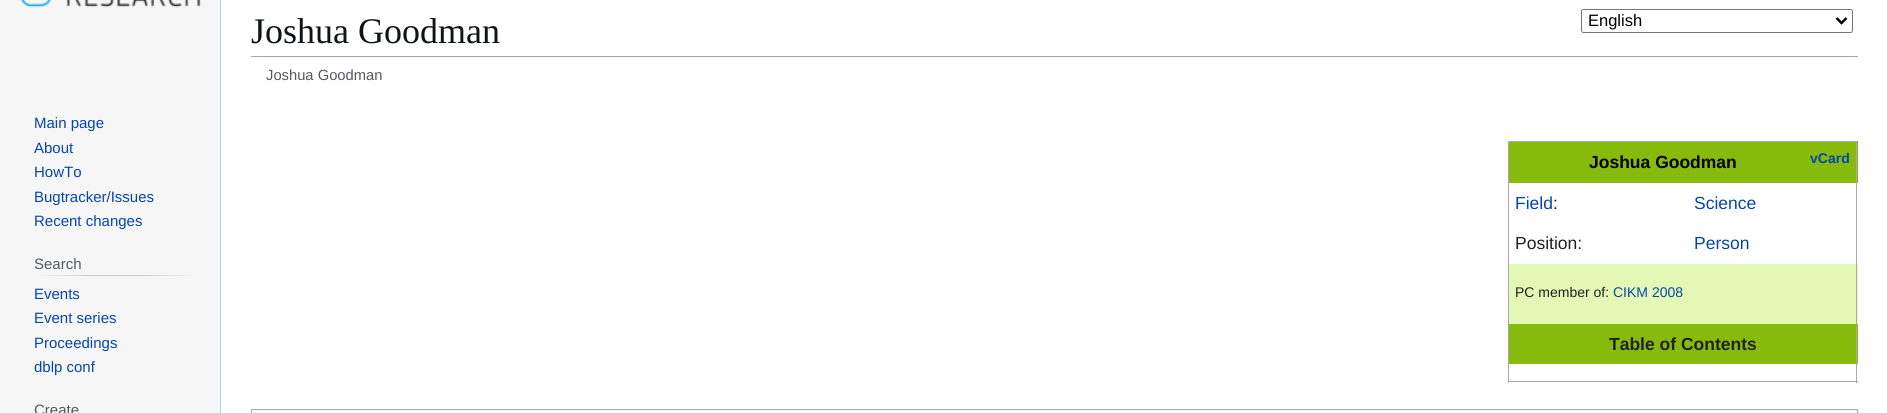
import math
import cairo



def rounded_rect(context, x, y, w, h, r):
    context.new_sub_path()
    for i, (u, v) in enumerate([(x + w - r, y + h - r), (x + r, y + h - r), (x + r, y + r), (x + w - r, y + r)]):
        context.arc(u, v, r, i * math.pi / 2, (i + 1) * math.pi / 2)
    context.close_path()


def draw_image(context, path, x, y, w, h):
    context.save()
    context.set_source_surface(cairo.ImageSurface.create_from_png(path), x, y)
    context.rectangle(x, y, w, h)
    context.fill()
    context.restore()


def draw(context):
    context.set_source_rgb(246 / 255, 246 / 255, 246 / 255)
    context.paint()
    draw_image(context, "images/1.png", 21, 0, 180, 8)
    gradient = cairo.LinearGradient(34, 276, 198, 276)
    gradient.add_color_stop_rgba(0, 246 / 255, 246 / 255, 246 / 255, 1)
    gradient.add_color_stop_rgba(0.33, 200 / 255, 204 / 255, 209 / 255, 1)
    gradient.add_color_stop_rgba(0.66, 200 / 255, 204 / 255, 209 / 255, 1)
    gradient.add_color_stop_rgba(1, 246 / 255, 246 / 255, 246 / 255, 1)
    context.set_source(gradient)
    context.rectangle(34, 275, 164, 1)
    context.fill()
    context.set_source_rgb(1, 1, 1)
    context.rectangle(221, 0, 1666, 413)
    context.fill()
    context.set_source_rgb(167 / 255, 215 / 255, 249 / 255)
    context.rectangle(220, 0, 1, 413)
    context.fill()
    context.set_source_rgb(162 / 255, 169 / 255, 177 / 255)
    context.rectangle(251, 56, 1607, 1)
    context.fill()
    rounded_rect(context, 1581.5, 9.5, 271, 23, 2)
    context.set_source_rgb(118 / 255, 118 / 255, 118 / 255)
    context.set_line_width(1)
    context.stroke()
    context.new_path()
    context.move_to(1836.5, 18)
    context.line_to(1841.5, 23)
    context.line_to(1846.5, 18)
    context.set_source_rgb(0, 0, 0)
    context.set_line_width(2.5)
    context.stroke()
    context.set_source_rgb(170 / 255, 170 / 255, 170 / 255)
    context.rectangle(1508, 141, 350, 1)
    context.fill()
    context.set_source_rgb(134 / 255, 186 / 255, 12 / 255)
    context.rectangle(1509, 142, 349, 41)
    context.fill()
    context.set_source_rgb(228 / 255, 248 / 255, 182 / 255)
    context.rectangle(1509, 264, 349, 60)
    context.fill()
    context.set_source_rgb(134 / 255, 186 / 255, 12 / 255)
    context.rectangle(1509, 324, 349, 40)
    context.fill()
    context.set_source_rgb(170 / 255, 170 / 255, 170 / 255)
    context.rectangle(1856, 141, 1, 242)
    context.fill()
    context.rectangle(1508, 381, 350, 1)
    context.fill()
    context.rectangle(1508, 141, 1, 242)
    context.fill()
    context.set_source_rgb(248 / 255, 249 / 255, 250 / 255)
    context.rectangle(251.5, 409.5, 1606, 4)
    context.fill_preserve()
    context.set_source_rgb(162 / 255, 169 / 255, 177 / 255)
    context.set_line_width(1)
    context.stroke()
    context.select_font_face("Liberation Sans")
    context.set_font_size(15)
    context.set_source_rgb(6 / 255, 69 / 255, 173 / 255)
    context.move_to(34, 128)
    context.show_text("Main page")
    context.move_to(34, 153)
    context.show_text("About")
    context.move_to(34, 177)
    context.show_text("HowTo")
    context.move_to(34, 202)
    context.show_text("Bugtracker/Issues")
    context.move_to(34, 226)
    context.show_text("Recent changes")
    context.set_source_rgb(84 / 255, 89 / 255, 93 / 255)
    context.move_to(34, 269)
    context.show_text("Search")
    context.set_source_rgb(6 / 255, 69 / 255, 173 / 255)
    context.move_to(34, 299)
    context.show_text("Events")
    context.move_to(34, 323)
    context.show_text("Event series")
    context.move_to(34, 348)
    context.show_text("Proceedings")
    context.move_to(34, 372)
    context.show_text("dblp conf")
    context.set_source_rgb(84 / 255, 89 / 255, 93 / 255)
    context.move_to(34, 415)
    context.show_text("Create")
    context.select_font_face("Liberation Serif")
    context.set_font_size(36)
    context.set_source_rgb(16 / 255, 20 / 255, 24 / 255)
    context.move_to(251, 43)
    context.show_text("Joshua Goodman")
    context.select_font_face("Liberation Sans")
    context.set_font_size(16.5)
    context.set_source_rgb(0, 0, 0)
    context.move_to(1588, 26)
    context.show_text("English")
    context.set_font_size(14.75)
    context.set_source_rgb(84 / 255, 89 / 255, 93 / 255)
    context.move_to(266, 80)
    context.show_text("Joshua Goodman")
    context.select_font_face("Liberation Sans", cairo.FontSlant.NORMAL, cairo.FontWeight.BOLD)
    context.set_font_size(17.5)
    context.set_source_rgb(0, 0, 0)
    context.move_to(1589, 168)
    context.show_text("Joshua Goodman")
    context.set_font_size(14)
    context.set_source_rgb(6 / 255, 69 / 255, 173 / 255)
    context.move_to(1810, 163)
    context.show_text("vCard")
    context.select_font_face("Liberation Sans")
    context.set_font_size(17.5)
    context.move_to(1515, 209)
    context.show_text("Field")
    context.set_source_rgb(32 / 255, 33 / 255, 34 / 255)
    context.move_to(1553, 209)
    context.show_text(":")
    context.set_source_rgb(6 / 255, 69 / 255, 173 / 255)
    context.move_to(1694, 209)
    context.show_text("Science")
    context.set_source_rgb(32 / 255, 33 / 255, 34 / 255)
    context.move_to(1515, 249)
    context.show_text("Position:")
    context.set_source_rgb(6 / 255, 69 / 255, 173 / 255)
    context.move_to(1694, 249)
    context.show_text("Person")
    context.set_font_size(14)
    context.set_source_rgb(32 / 255, 33 / 255, 34 / 255)
    context.move_to(1515, 297)
    context.show_text("PC member of:")
    context.set_source_rgb(6 / 255, 69 / 255, 173 / 255)
    context.move_to(1613, 297)
    context.show_text("CIKM 2008")
    context.select_font_face("Liberation Sans", cairo.FontSlant.NORMAL, cairo.FontWeight.BOLD)
    context.set_font_size(17.5)
    context.set_source_rgb(32 / 255, 33 / 255, 34 / 255)
    context.move_to(1609, 350)
    context.show_text("Table of Contents")


surface = cairo.ImageSurface(cairo.Format.RGB24, 1887, 413)
context = cairo.Context(surface)
options = cairo.FontOptions()
options.set_hint_metrics(cairo.HintMetrics.OFF)
options.set_hint_style(cairo.HintStyle.NONE)
context.set_font_options(options)
context.set_miter_limit(4)
draw(context)
surface.write_to_png("out.png")
